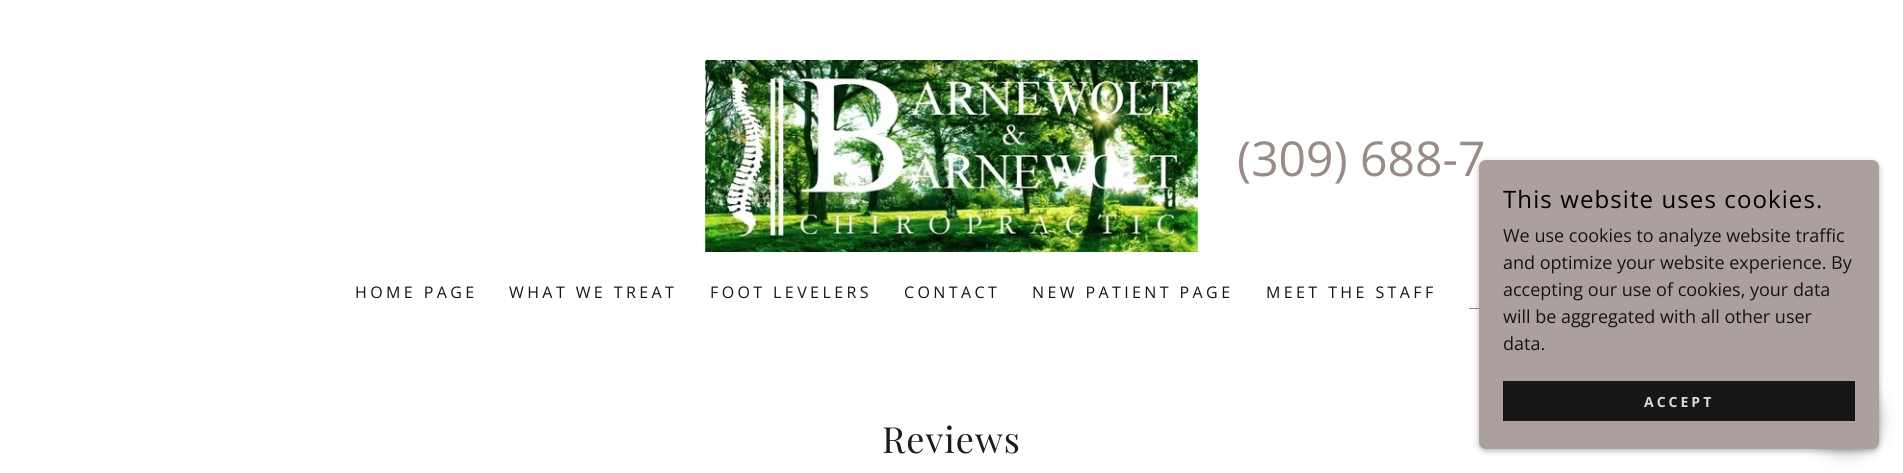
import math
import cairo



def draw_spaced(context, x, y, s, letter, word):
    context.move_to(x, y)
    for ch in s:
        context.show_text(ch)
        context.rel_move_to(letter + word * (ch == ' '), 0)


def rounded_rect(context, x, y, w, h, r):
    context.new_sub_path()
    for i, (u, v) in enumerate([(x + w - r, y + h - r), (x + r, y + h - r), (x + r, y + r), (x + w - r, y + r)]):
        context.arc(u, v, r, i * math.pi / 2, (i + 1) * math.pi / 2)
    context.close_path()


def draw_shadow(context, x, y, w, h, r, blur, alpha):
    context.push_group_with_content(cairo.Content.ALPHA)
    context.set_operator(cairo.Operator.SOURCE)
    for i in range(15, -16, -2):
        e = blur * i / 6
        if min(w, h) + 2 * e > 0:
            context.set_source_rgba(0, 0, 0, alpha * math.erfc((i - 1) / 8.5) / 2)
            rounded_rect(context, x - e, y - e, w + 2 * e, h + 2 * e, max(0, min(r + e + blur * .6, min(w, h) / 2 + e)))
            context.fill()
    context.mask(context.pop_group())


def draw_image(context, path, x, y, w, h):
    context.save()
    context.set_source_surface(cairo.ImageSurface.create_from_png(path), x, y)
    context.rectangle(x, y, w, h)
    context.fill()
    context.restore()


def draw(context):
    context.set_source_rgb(1, 1, 1)
    context.paint()
    draw_image(context, "images/1.png", 705, 60, 493, 192)
    context.set_source_rgb(147 / 255, 134 / 255, 132 / 255)
    context.rectangle(1469, 308, 10, 1)
    context.fill()
    context.set_source_rgb(0, 0, 0)
    draw_shadow(context, 1479, 162, 400, 289, 7, 3, 0.3)
    draw_shadow(context, 1814, 387, 65, 65, 32.5, 9, 0.25)
    context.select_font_face("Open Sans")
    context.set_font_size(48)
    context.set_source_rgb(153 / 255, 139 / 255, 136 / 255)
    context.move_to(1237, 176)
    context.show_text("(309) 688-7")
    context.set_font_size(16)
    context.set_source_rgb(21 / 255, 21 / 255, 21 / 255)
    draw_spaced(context, 355, 298, "HOME PAGE", 3.4, 0)
    draw_spaced(context, 509, 298, "WHAT WE TREAT", 3.4, 0)
    draw_spaced(context, 710, 298, "FOOT LEVELERS", 3.4, 0)
    draw_spaced(context, 904, 298, "CONTACT", 3.4, 0)
    draw_spaced(context, 1032, 298, "NEW PATIENT PAGE", 3.4, 0)
    draw_spaced(context, 1266, 298, "MEET THE STAFF", 3.4, 0)
    context.set_source_rgb(172 / 255, 160 / 255, 158 / 255)
    rounded_rect(context, 1479, 160, 400, 289, 7)
    context.fill()
    context.set_font_size(24)
    context.set_source_rgb(0, 0, 0)
    draw_spaced(context, 1503, 208, "This website uses cookies.", 1.1, 0)
    context.set_font_size(18)
    context.set_source_rgb(21 / 255, 21 / 255, 21 / 255)
    context.move_to(1503, 242)
    context.show_text("We use cookies to analyze website traffic")
    context.move_to(1503, 269)
    context.show_text("and optimize your website experience. By")
    context.move_to(1503, 296)
    context.show_text("accepting our use of cookies, your data")
    context.move_to(1503, 323)
    context.show_text("will be aggregated with all other user")
    context.move_to(1503, 350)
    context.show_text("data.")
    context.set_source_rgb(22 / 255, 22 / 255, 22 / 255)
    context.rectangle(1503, 381, 352, 40)
    context.fill()
    context.select_font_face("Open Sans", cairo.FontSlant.NORMAL, cairo.FontWeight.BOLD)
    context.set_font_size(14)
    context.set_source_rgb(219 / 255, 219 / 255, 219 / 255)
    draw_spaced(context, 1644, 407, "ACCEPT", 3, 0)
    context.select_font_face("Playfair Display")
    context.set_font_size(36)
    context.set_source_rgb(27 / 255, 27 / 255, 27 / 255)
    draw_spaced(context, 882, 453, "Reviews", 1, 0)


surface = cairo.ImageSurface(cairo.Format.RGB24, 1903, 473)
context = cairo.Context(surface)
options = cairo.FontOptions()
options.set_hint_metrics(cairo.HintMetrics.OFF)
options.set_hint_style(cairo.HintStyle.NONE)
context.set_font_options(options)
context.set_miter_limit(4)
draw(context)
surface.write_to_png("out.png")
